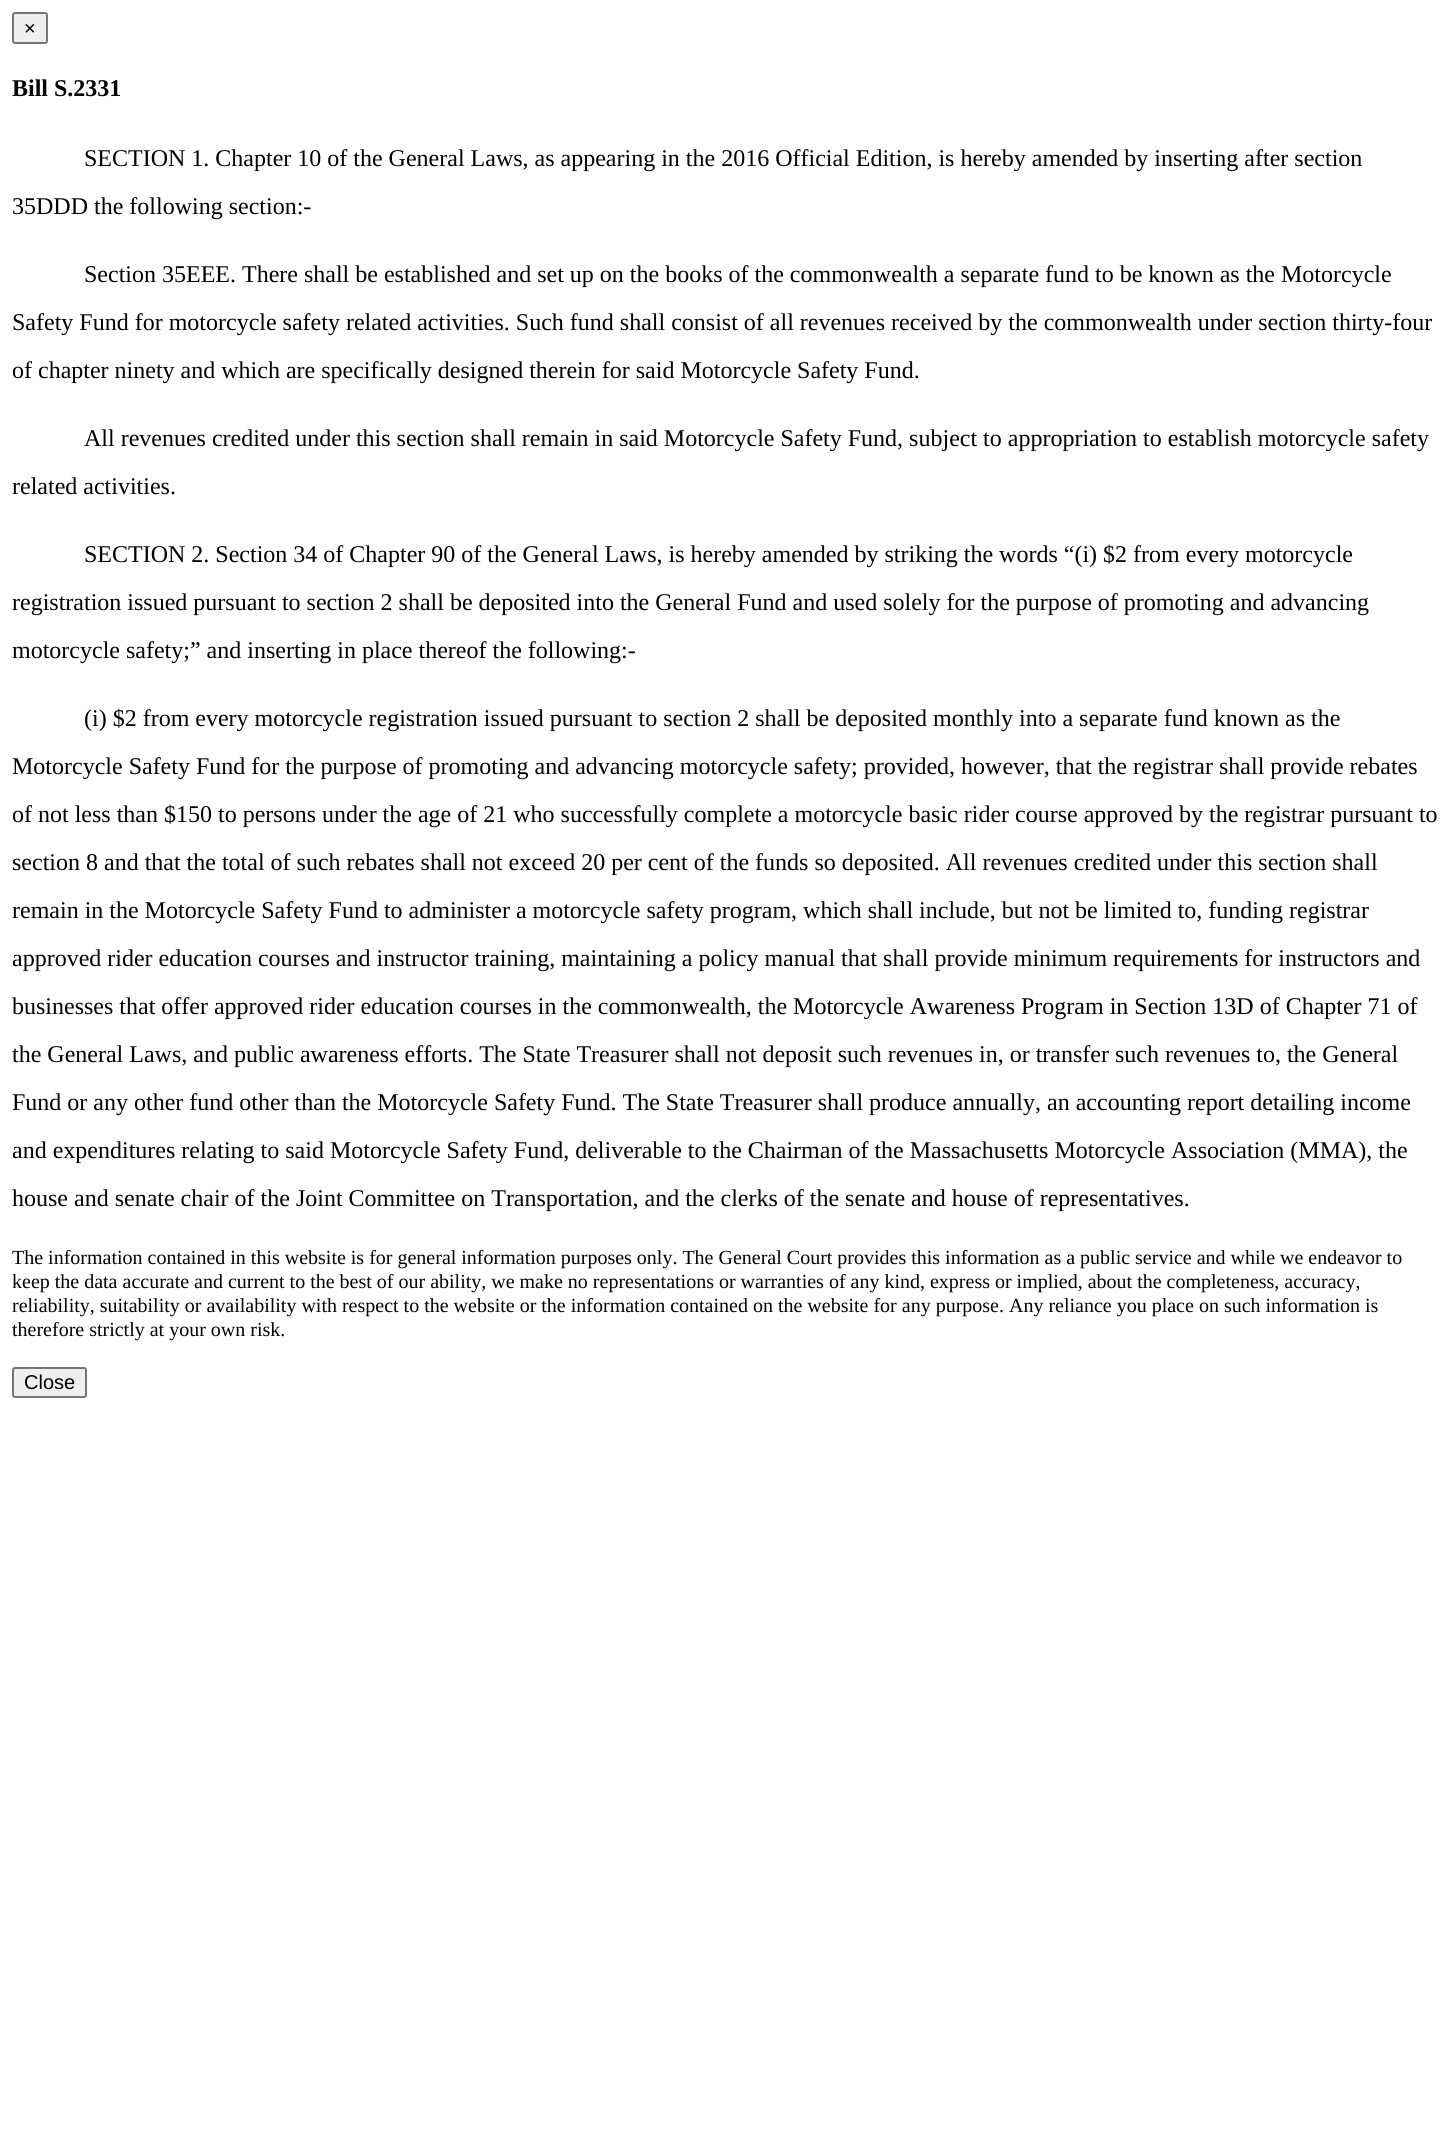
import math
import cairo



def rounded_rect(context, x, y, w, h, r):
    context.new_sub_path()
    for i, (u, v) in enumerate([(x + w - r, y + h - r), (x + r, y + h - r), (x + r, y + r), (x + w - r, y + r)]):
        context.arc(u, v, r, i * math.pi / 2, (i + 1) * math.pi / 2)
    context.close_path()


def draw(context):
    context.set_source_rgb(1, 1, 1)
    context.paint()
    context.set_source_rgb(239 / 255, 239 / 255, 239 / 255)
    rounded_rect(context, 13, 13, 34, 30, 2)
    context.fill_preserve()
    context.set_source_rgb(118 / 255, 118 / 255, 118 / 255)
    context.stroke()
    context.set_source_rgb(239 / 255, 239 / 255, 239 / 255)
    rounded_rect(context, 13, 1368, 73, 29, 2)
    context.fill_preserve()
    context.set_source_rgb(118 / 255, 118 / 255, 118 / 255)
    context.stroke()
    context.select_font_face("Liberation Sans")
    context.set_font_size(20)
    context.set_source_rgb(0, 0, 0)
    context.move_to(24, 35)
    context.show_text("×")
    context.select_font_face("Liberation Serif", cairo.FontSlant.NORMAL, cairo.FontWeight.BOLD)
    context.set_font_size(24)
    context.move_to(12, 96)
    context.show_text("Bill S.2331")
    context.select_font_face("Liberation Serif")
    context.move_to(84, 166)
    context.show_text("SECTION 1. Chapter 10 of the General Laws, as appearing in the 2016 Official Edition, is hereby amended by inserting after section")
    context.move_to(12, 214)
    context.show_text("35DDD the following section:-")
    context.move_to(84, 282)
    context.show_text("Section 35EEE. There shall be established and set up on the books of the commonwealth a separate fund to be known as the Motorcycle")
    context.move_to(12, 330)
    context.show_text("Safety Fund for motorcycle safety related activities. Such fund shall consist of all revenues received by the commonwealth under section thirty-four")
    context.move_to(12, 378)
    context.show_text("of chapter ninety and which are specifically designed therein for said Motorcycle Safety Fund.")
    context.move_to(84, 446)
    context.show_text("All revenues credited under this section shall remain in said Motorcycle Safety Fund, subject to appropriation to establish motorcycle safety")
    context.move_to(12, 494)
    context.show_text("related activities.")
    context.move_to(84, 562)
    context.show_text("SECTION 2. Section 34 of Chapter 90 of the General Laws, is hereby amended by striking the words “(i) $2 from every motorcycle")
    context.move_to(12, 610)
    context.show_text("registration issued pursuant to section 2 shall be deposited into the General Fund and used solely for the purpose of promoting and advancing")
    context.move_to(12, 658)
    context.show_text("motorcycle safety;” and inserting in place thereof the following:-")
    context.move_to(84, 726)
    context.show_text("(i) $2 from every motorcycle registration issued pursuant to section 2 shall be deposited monthly into a separate fund known as the")
    context.move_to(12, 774)
    context.show_text("Motorcycle Safety Fund for the purpose of promoting and advancing motorcycle safety; provided, however, that the registrar shall provide rebates")
    context.move_to(12, 822)
    context.show_text("of not less than $150 to persons under the age of 21 who successfully complete a motorcycle basic rider course approved by the registrar pursuant to")
    context.move_to(12, 870)
    context.show_text("section 8 and that the total of such rebates shall not exceed 20 per cent of the funds so deposited. All revenues credited under this section shall")
    context.move_to(12, 918)
    context.show_text("remain in the Motorcycle Safety Fund to administer a motorcycle safety program, which shall include, but not be limited to, funding registrar")
    context.move_to(12, 966)
    context.show_text("approved rider education courses and instructor training, maintaining a policy manual that shall provide minimum requirements for instructors and")
    context.move_to(12, 1014)
    context.show_text("businesses that offer approved rider education courses in the commonwealth, the Motorcycle Awareness Program in Section 13D of Chapter 71 of")
    context.move_to(12, 1062)
    context.show_text("the General Laws, and public awareness efforts. The State Treasurer shall not deposit such revenues in, or transfer such revenues to, the General")
    context.move_to(12, 1110)
    context.show_text("Fund or any other fund other than the Motorcycle Safety Fund. The State Treasurer shall produce annually, an accounting report detailing income")
    context.move_to(12, 1158)
    context.show_text("and expenditures relating to said Motorcycle Safety Fund, deliverable to the Chairman of the Massachusetts Motorcycle Association (MMA), the")
    context.move_to(12, 1206)
    context.show_text("house and senate chair of the Joint Committee on Transportation, and the clerks of the senate and house of representatives.")
    context.set_font_size(20)
    context.move_to(12, 1264)
    context.show_text("The information contained in this website is for general information purposes only. The General Court provides this information as a public service and while we endeavor to")
    context.move_to(12, 1288)
    context.show_text("keep the data accurate and current to the best of our ability, we make no representations or warranties of any kind, express or implied, about the completeness, accuracy,")
    context.move_to(12, 1312)
    context.show_text("reliability, suitability or availability with respect to the website or the information contained on the website for any purpose. Any reliance you place on such information is")
    context.move_to(12, 1336)
    context.show_text("therefore strictly at your own risk.")
    context.select_font_face("Liberation Sans")
    context.move_to(24, 1389)
    context.show_text("Close")


surface = cairo.ImageSurface(cairo.Format.RGB24, 1453, 2153)
context = cairo.Context(surface)
options = cairo.FontOptions()
options.set_hint_metrics(cairo.HintMetrics.OFF)
options.set_hint_style(cairo.HintStyle.NONE)
context.set_font_options(options)
context.set_miter_limit(4)
draw(context)
surface.write_to_png("out.png")
